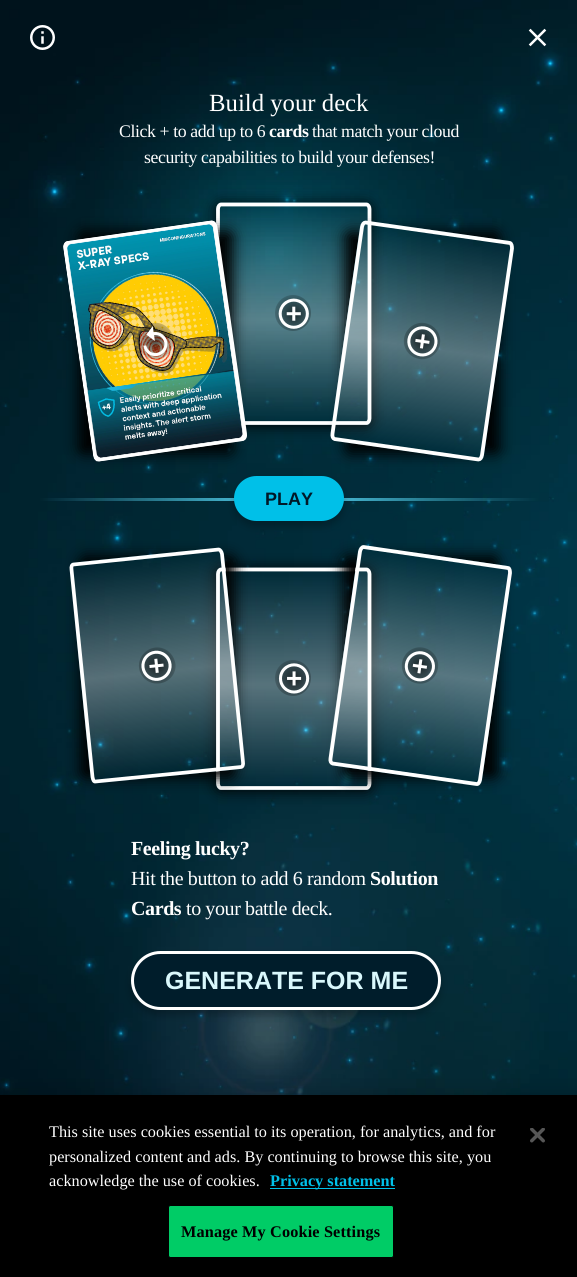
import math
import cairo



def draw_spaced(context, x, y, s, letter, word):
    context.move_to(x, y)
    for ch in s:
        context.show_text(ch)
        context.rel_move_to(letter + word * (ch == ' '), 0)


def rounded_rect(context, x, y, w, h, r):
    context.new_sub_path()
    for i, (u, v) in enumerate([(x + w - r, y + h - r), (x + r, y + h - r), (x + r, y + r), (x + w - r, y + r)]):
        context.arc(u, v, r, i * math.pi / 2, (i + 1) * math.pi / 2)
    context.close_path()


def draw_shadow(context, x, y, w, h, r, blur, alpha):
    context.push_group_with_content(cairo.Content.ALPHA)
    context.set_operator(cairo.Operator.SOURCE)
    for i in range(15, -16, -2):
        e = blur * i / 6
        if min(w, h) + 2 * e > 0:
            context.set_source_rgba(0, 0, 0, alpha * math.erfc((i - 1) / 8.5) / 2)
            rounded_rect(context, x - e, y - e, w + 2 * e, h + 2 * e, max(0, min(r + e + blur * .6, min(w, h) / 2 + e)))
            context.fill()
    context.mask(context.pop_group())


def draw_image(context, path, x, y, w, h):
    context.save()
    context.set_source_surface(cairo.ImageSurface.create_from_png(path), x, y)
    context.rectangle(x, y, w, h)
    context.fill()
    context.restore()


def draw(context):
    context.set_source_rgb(1, 1, 1)
    context.paint()
    draw_image(context, "images/1.png", 0, 0, 577, 1095)
    draw_image(context, "images/2.png", 30, 25, 25, 25)
    draw_image(context, "images/3.png", 528, 28, 19, 19)
    context.save()
    context.set_fill_rule(cairo.FillRule.EVEN_ODD)
    context.new_path()
    context.move_to(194, 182)
    context.line_to(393, 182)
    context.line_to(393, 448)
    context.line_to(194, 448)
    context.close_path()
    context.move_to(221, 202.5)
    context.line_to(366.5, 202.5)
    context.curve_to(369, 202.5, 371, 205.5, 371, 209)
    context.line_to(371, 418.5)
    context.curve_to(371, 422, 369, 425, 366.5, 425)
    context.line_to(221, 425)
    context.curve_to(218.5, 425, 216, 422, 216, 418.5)
    context.line_to(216, 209)
    context.curve_to(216, 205.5, 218.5, 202.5, 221, 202.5)
    context.close_path()
    context.clip()
    context.set_source_rgb(0, 0, 0)
    draw_shadow(context, 216, 204, 155, 222, 5, 7, 1)
    context.restore()
    gradient = cairo.LinearGradient(294, 206, 294, 421)
    gradient.add_color_stop_rgba(0, 1, 1, 1, 0)
    gradient.add_color_stop_rgba(0.53, 1, 1, 1, 0.34)
    gradient.add_color_stop_rgba(1, 1, 1, 1, 0)
    context.set_source(gradient)
    context.new_path()
    context.move_to(217, 421)
    context.line_to(216, 418)
    context.line_to(216, 209)
    context.line_to(217, 206)
    context.line_to(371, 206)
    context.line_to(371, 421)
    context.close_path()
    context.fill()
    context.new_path()
    context.move_to(221, 204.5)
    context.line_to(366.5, 204.5)
    context.curve_to(368, 204.5, 369.5, 206.5, 369.5, 209)
    context.line_to(369.5, 418.5)
    context.curve_to(369.5, 421, 368, 423, 366.5, 423)
    context.line_to(221, 423)
    context.curve_to(219.5, 423, 218, 421, 218, 418.5)
    context.line_to(218, 209)
    context.curve_to(218, 206.5, 219.5, 204.5, 221, 204.5)
    context.close_path()
    context.set_source_rgb(1, 1, 1)
    context.set_line_width(3.8)
    context.stroke()
    context.set_source_rgb(0, 0, 0)
    draw_shadow(context, 78, 231, 155, 223, 5, 7, 1)
    context.new_path()
    context.move_to(67.5, 243)
    context.line_to(212, 222.5)
    context.curve_to(213.5, 222.5, 215, 224, 215.5, 227)
    context.line_to(245, 433.5)
    context.curve_to(245.5, 436.5, 244.5, 438.5, 243, 439)
    context.line_to(99, 459.5)
    context.curve_to(97.5, 459.5, 95.5, 458, 95.5, 455)
    context.line_to(65.5, 248.5)
    context.curve_to(65, 246, 66, 243.5, 67.5, 243)
    context.close_path()
    context.set_source_rgb(1, 1, 1)
    context.stroke()
    draw_image(context, "images/4.png", 63, 220, 184, 242)
    draw_image(context, "images/5.png", 143, 326, 25, 31)
    gradient = cairo.RadialGradient(294, 314, 0, 294, 314, 26)
    gradient.add_color_stop_rgba(0, 0, 0, 0, 0.67)
    gradient.add_color_stop_rgba(1, 0, 0, 0, 0)
    context.set_source(gradient)
    context.arc(293, 313, 18, 0, 2 * math.pi)
    context.fill()
    draw_image(context, "images/6.png", 278, 298, 31, 31)
    context.save()
    context.set_fill_rule(cairo.FillRule.EVEN_ODD)
    context.new_path()
    context.move_to(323, 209)
    context.line_to(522, 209)
    context.line_to(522, 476)
    context.line_to(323, 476)
    context.close_path()
    context.move_to(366, 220.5)
    context.line_to(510, 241.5)
    context.curve_to(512.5, 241.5, 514, 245, 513.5, 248.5)
    context.line_to(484, 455.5)
    context.curve_to(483.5, 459, 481, 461.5, 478.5, 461.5)
    context.line_to(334, 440.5)
    context.curve_to(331.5, 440.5, 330, 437, 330.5, 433.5)
    context.line_to(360, 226.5)
    context.curve_to(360.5, 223, 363, 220.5, 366, 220.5)
    context.close_path()
    context.clip()
    context.set_source_rgb(0, 0, 0)
    draw_shadow(context, 345, 231, 155, 223, 5, 7, 1)
    context.restore()
    gradient = cairo.LinearGradient(437, 235, 407, 447)
    gradient.add_color_stop_rgba(0, 1, 1, 1, 0)
    gradient.add_color_stop_rgba(0.53, 1, 1, 1, 0.34)
    gradient.add_color_stop_rgba(1, 1, 1, 1, 0)
    context.set_source(gradient)
    context.new_path()
    context.move_to(361, 224)
    context.line_to(514, 246)
    context.line_to(504, 315)
    context.line_to(483, 458)
    context.line_to(330, 436)
    context.line_to(336, 395)
    context.close_path()
    context.fill()
    context.new_path()
    context.move_to(365.5, 222.5)
    context.line_to(510, 243)
    context.curve_to(511.5, 243.5, 512, 246, 512, 248.5)
    context.line_to(482, 455)
    context.curve_to(481.5, 458, 480, 459.5, 478.5, 459.5)
    context.line_to(334.5, 439)
    context.curve_to(333, 438.5, 332, 436.5, 332.5, 433.5)
    context.line_to(362, 227)
    context.curve_to(362.5, 224, 364, 222.5, 365.5, 222.5)
    context.close_path()
    context.set_source_rgb(1, 1, 1)
    context.stroke()
    gradient = cairo.RadialGradient(422, 341, 0, 422, 341, 26)
    gradient.add_color_stop_rgba(0, 0, 0, 0, 0.67)
    gradient.add_color_stop_rgba(1, 0, 0, 0, 0)
    context.set_source(gradient)
    context.new_path()
    context.move_to(424.5, 323)
    context.curve_to(434.5, 324.5, 441.5, 333.5, 440, 343.5)
    context.curve_to(438.5, 353.5, 429.5, 360.5, 419.5, 359)
    context.curve_to(409.5, 357.5, 402.5, 348.5, 404, 338.5)
    context.curve_to(405.5, 328.5, 415, 321.5, 424.5, 323)
    context.close_path()
    context.fill()
    draw_image(context, "images/7.png", 407, 326, 31, 31)
    context.set_source_rgb(0, 0, 0)
    draw_shadow(context, 234, 481, 110, 45, 22.5, 4, 0.25)
    context.set_source_rgb(0, 192 / 255, 232 / 255)
    rounded_rect(context, 234, 476, 110, 45, 22.5)
    context.fill()
    context.save()
    context.set_fill_rule(cairo.FillRule.EVEN_ODD)
    context.new_path()
    context.move_to(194, 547)
    context.line_to(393, 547)
    context.line_to(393, 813)
    context.line_to(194, 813)
    context.close_path()
    context.move_to(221, 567.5)
    context.line_to(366.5, 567.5)
    context.curve_to(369, 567.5, 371, 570.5, 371, 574)
    context.line_to(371, 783.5)
    context.curve_to(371, 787, 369, 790, 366.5, 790)
    context.line_to(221, 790)
    context.curve_to(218.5, 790, 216, 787, 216, 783.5)
    context.line_to(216, 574)
    context.curve_to(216, 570.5, 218.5, 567.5, 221, 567.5)
    context.close_path()
    context.clip()
    context.set_source_rgb(0, 0, 0)
    draw_shadow(context, 216, 569, 155, 222, 5, 7, 1)
    context.restore()
    gradient = cairo.LinearGradient(294, 571, 294, 786)
    gradient.add_color_stop_rgba(0, 1, 1, 1, 0)
    gradient.add_color_stop_rgba(0.53, 1, 1, 1, 0.34)
    gradient.add_color_stop_rgba(1, 1, 1, 1, 0)
    context.set_source(gradient)
    context.new_path()
    context.move_to(217, 786)
    context.line_to(216, 783)
    context.line_to(216, 574)
    context.line_to(217, 571)
    context.line_to(371, 571)
    context.line_to(371, 786)
    context.close_path()
    context.fill()
    context.new_path()
    context.move_to(221, 569.5)
    context.line_to(366.5, 569.5)
    context.curve_to(368, 569.5, 369.5, 571.5, 369.5, 574)
    context.line_to(369.5, 783.5)
    context.curve_to(369.5, 786, 368, 788, 366.5, 788)
    context.line_to(221, 788)
    context.curve_to(219.5, 788, 218, 786, 218, 783.5)
    context.line_to(218, 574)
    context.curve_to(218, 571.5, 219.5, 569.5, 221, 569.5)
    context.close_path()
    context.set_source_rgb(1, 1, 1)
    context.stroke()
    context.save()
    context.set_fill_rule(cairo.FillRule.EVEN_ODD)
    context.new_path()
    context.move_to(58, 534)
    context.line_to(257, 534)
    context.line_to(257, 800)
    context.line_to(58, 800)
    context.close_path()
    context.move_to(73.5, 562.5)
    context.line_to(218.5, 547.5)
    context.curve_to(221, 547.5, 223.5, 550, 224, 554)
    context.line_to(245, 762)
    context.curve_to(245.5, 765.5, 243.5, 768.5, 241, 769)
    context.line_to(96, 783.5)
    context.curve_to(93.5, 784, 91, 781, 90.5, 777.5)
    context.line_to(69.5, 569.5)
    context.curve_to(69, 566, 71, 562.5, 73.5, 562.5)
    context.close_path()
    context.clip()
    context.set_source_rgb(0, 0, 0)
    draw_shadow(context, 80, 556, 155, 222, 5, 7, 1)
    context.restore()
    gradient = cairo.LinearGradient(146, 559, 168, 772)
    gradient.add_color_stop_rgba(0, 1, 1, 1, 0)
    gradient.add_color_stop_rgba(0.53, 1, 1, 1, 0.34)
    gradient.add_color_stop_rgba(1, 1, 1, 1, 0)
    context.set_source(gradient)
    context.new_path()
    context.move_to(84, 711)
    context.line_to(70, 567)
    context.line_to(223, 551)
    context.curve_to(227, 559, 225, 569, 226, 578)
    context.line_to(240, 719)
    context.line_to(245, 765)
    context.line_to(91, 780)
    context.close_path()
    context.fill()
    context.new_path()
    context.move_to(73.5, 564.5)
    context.line_to(218.5, 549.5)
    context.curve_to(220, 549.5, 221.5, 551.5, 222, 554)
    context.line_to(243, 762)
    context.curve_to(243.5, 764.5, 242.5, 767, 241, 767)
    context.line_to(95.5, 781.5)
    context.curve_to(94, 782, 93, 780, 92.5, 777)
    context.line_to(71.5, 569.5)
    context.curve_to(71, 566.5, 72, 564.5, 73.5, 564.5)
    context.close_path()
    context.set_source_rgb(1, 1, 1)
    context.set_line_width(3.7)
    context.stroke()
    gradient = cairo.RadialGradient(157, 666, 0, 157, 666, 26)
    gradient.add_color_stop_rgba(0, 0, 0, 0, 0.67)
    gradient.add_color_stop_rgba(1, 0, 0, 0, 0)
    context.set_source(gradient)
    context.new_path()
    context.move_to(155.5, 647.5)
    context.curve_to(165.5, 646.5, 174, 654, 175.5, 664)
    context.curve_to(176.5, 674, 169, 682.5, 159, 683.5)
    context.curve_to(149, 684.5, 140, 677.5, 139, 667.5)
    context.curve_to(138, 657.5, 145.5, 648.5, 155.5, 647.5)
    context.close_path()
    context.fill()
    draw_image(context, "images/8.png", 141, 650, 31, 31)
    gradient = cairo.RadialGradient(294, 679, 0, 294, 679, 26)
    gradient.add_color_stop_rgba(0, 0, 0, 0, 0.67)
    gradient.add_color_stop_rgba(1, 0, 0, 0, 0)
    context.set_source(gradient)
    context.arc(293, 678, 18, 0, 2 * math.pi)
    context.fill()
    draw_image(context, "images/9.png", 278, 663, 32, 31)
    context.save()
    context.set_fill_rule(cairo.FillRule.EVEN_ODD)
    context.new_path()
    context.move_to(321, 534)
    context.line_to(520, 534)
    context.line_to(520, 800)
    context.line_to(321, 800)
    context.close_path()
    context.move_to(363.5, 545.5)
    context.line_to(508, 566)
    context.curve_to(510.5, 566.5, 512, 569.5, 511.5, 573.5)
    context.line_to(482, 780)
    context.curve_to(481.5, 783.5, 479, 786.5, 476.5, 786)
    context.line_to(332, 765.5)
    context.curve_to(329.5, 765, 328, 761.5, 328.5, 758)
    context.line_to(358, 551)
    context.curve_to(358.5, 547.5, 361, 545, 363.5, 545.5)
    context.close_path()
    context.clip()
    context.set_source_rgb(0, 0, 0)
    draw_shadow(context, 343, 556, 155, 222, 5, 7, 1)
    context.restore()
    gradient = cairo.LinearGradient(435, 559, 405, 772)
    gradient.add_color_stop_rgba(0, 1, 1, 1, 0)
    gradient.add_color_stop_rgba(0.53, 1, 1, 1, 0.34)
    gradient.add_color_stop_rgba(1, 1, 1, 1, 0)
    context.set_source(gradient)
    context.new_path()
    context.move_to(359, 549)
    context.line_to(359, 548)
    context.line_to(512, 570)
    context.line_to(512, 572)
    context.line_to(504, 626)
    context.line_to(482, 780)
    context.line_to(481, 783)
    context.line_to(329, 761)
    context.line_to(328, 758)
    context.close_path()
    context.fill()
    context.new_path()
    context.move_to(363.5, 547)
    context.line_to(508, 568)
    context.curve_to(509.5, 568, 510, 570.5, 510, 573)
    context.line_to(480, 780)
    context.curve_to(479.5, 782.5, 478, 784.5, 476.5, 784)
    context.line_to(332.5, 763.5)
    context.curve_to(331, 763, 330, 761, 330.5, 758.5)
    context.line_to(360, 551.5)
    context.curve_to(360.5, 549, 362, 547, 363.5, 547)
    context.close_path()
    context.set_source_rgb(1, 1, 1)
    context.set_line_width(3.8)
    context.stroke()
    gradient = cairo.RadialGradient(420, 666, 0, 420, 666, 26)
    gradient.add_color_stop_rgba(0, 0, 0, 0, 0.67)
    gradient.add_color_stop_rgba(1, 0, 0, 0, 0)
    context.set_source(gradient)
    context.new_path()
    context.move_to(422.5, 647.5)
    context.curve_to(432.5, 649, 439.5, 658.5, 438, 668)
    context.curve_to(436.5, 678, 427.5, 685, 417.5, 683.5)
    context.curve_to(407.5, 682, 400.5, 673, 402, 663)
    context.curve_to(403.5, 653, 412.5, 646, 422.5, 647.5)
    context.close_path()
    context.fill()
    draw_image(context, "images/10.png", 404, 651, 31, 31)
    context.set_source_rgb(0, 0, 0)
    draw_shadow(context, 131, 956, 310, 59, 29.5, 4, 0.25)
    context.set_source_rgb(0, 29 / 255, 43 / 255)
    rounded_rect(context, 132.5, 952.5, 307, 56, 28)
    context.fill_preserve()
    context.set_source_rgb(1, 1, 1)
    context.set_line_width(3)
    context.stroke()
    context.set_source_rgb(0, 0, 0)
    draw_shadow(context, 0, 1095, 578, 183, 0, 11, 0.2)
    context.set_source_rgb(0, 0, 0)
    context.rectangle(0, 1095, 577, 182)
    context.fill()
    context.set_source_rgb(0, 192 / 255, 232 / 255)
    context.rectangle(270, 1188, 125, 1)
    context.fill()
    context.set_source_rgb(0, 204 / 255, 102 / 255)
    rounded_rect(context, 168.5, 1205.5, 225, 52, 2)
    context.fill_preserve()
    context.set_source_rgb(0, 0, 0)
    context.set_line_width(1)
    context.stroke()
    draw_image(context, "images/11.png", 530, 1128, 15, 15)
    context.select_font_face("Liberation Serif")
    context.set_font_size(24.75)
    context.set_source_rgb(1, 1, 1)
    context.move_to(209, 111)
    context.show_text("Build your deck")
    context.set_font_size(17.75)
    draw_spaced(context, 119, 137, "Click + to add up to 6", -0.4, 0)
    context.select_font_face("Liberation Serif", cairo.FontSlant.NORMAL, cairo.FontWeight.BOLD)
    draw_spaced(context, 269, 137, "cards", -0.4, 0)
    context.select_font_face("Liberation Serif")
    draw_spaced(context, 312, 137, "that match your cloud", -0.4, 0)
    draw_spaced(context, 144, 163, "security capabilities to build your defenses!", -0.4, 0)
    context.select_font_face("Liberation Sans", cairo.FontSlant.NORMAL, cairo.FontWeight.BOLD)
    context.set_font_size(18)
    context.set_source_rgb(0, 25 / 255, 40 / 255)
    context.move_to(265, 505)
    context.show_text("PLAY")
    context.select_font_face("Liberation Serif", cairo.FontSlant.NORMAL, cairo.FontWeight.BOLD)
    context.set_font_size(20)
    context.set_source_rgb(1, 1, 1)
    draw_spaced(context, 131, 855, "Feeling lucky?", -0.4, 0)
    context.select_font_face("Liberation Serif")
    draw_spaced(context, 131, 885, "Hit the button to add 6 random", -0.4, 0)
    context.select_font_face("Liberation Serif", cairo.FontSlant.NORMAL, cairo.FontWeight.BOLD)
    draw_spaced(context, 370, 885, "Solution", -0.4, 0)
    draw_spaced(context, 131, 915, "Cards", -0.4, 0)
    context.select_font_face("Liberation Serif")
    draw_spaced(context, 186, 915, "to your battle deck.", -0.4, 0)
    context.select_font_face("Liberation Sans", cairo.FontSlant.NORMAL, cairo.FontWeight.BOLD)
    context.set_font_size(25)
    context.set_source_rgb(217 / 255, 248 / 255, 252 / 255)
    context.move_to(165, 989)
    context.show_text("GENERATE FOR ME")
    context.select_font_face("Liberation Serif")
    context.set_font_size(16.25)
    context.set_source_rgb(1, 1, 1)
    context.move_to(49, 1137)
    context.show_text("This site uses cookies essential to its operation, for analytics, and for")
    context.move_to(49, 1162)
    context.show_text("personalized content and ads. By continuing to browse this site, you")
    context.move_to(49, 1186)
    context.show_text("acknowledge the use of cookies.")
    context.select_font_face("Liberation Serif", cairo.FontSlant.NORMAL, cairo.FontWeight.BOLD)
    context.set_source_rgb(0, 192 / 255, 232 / 255)
    context.move_to(270, 1186)
    context.show_text("Privacy statement")
    context.set_source_rgb(0, 0, 0)
    draw_spaced(context, 181, 1237, "Manage My Cookie Settings", 0.15, 0)


surface = cairo.ImageSurface(cairo.Format.RGB24, 577, 1277)
context = cairo.Context(surface)
options = cairo.FontOptions()
options.set_hint_metrics(cairo.HintMetrics.OFF)
options.set_hint_style(cairo.HintStyle.NONE)
context.set_font_options(options)
context.set_miter_limit(4)
draw(context)
surface.write_to_png("out.png")
